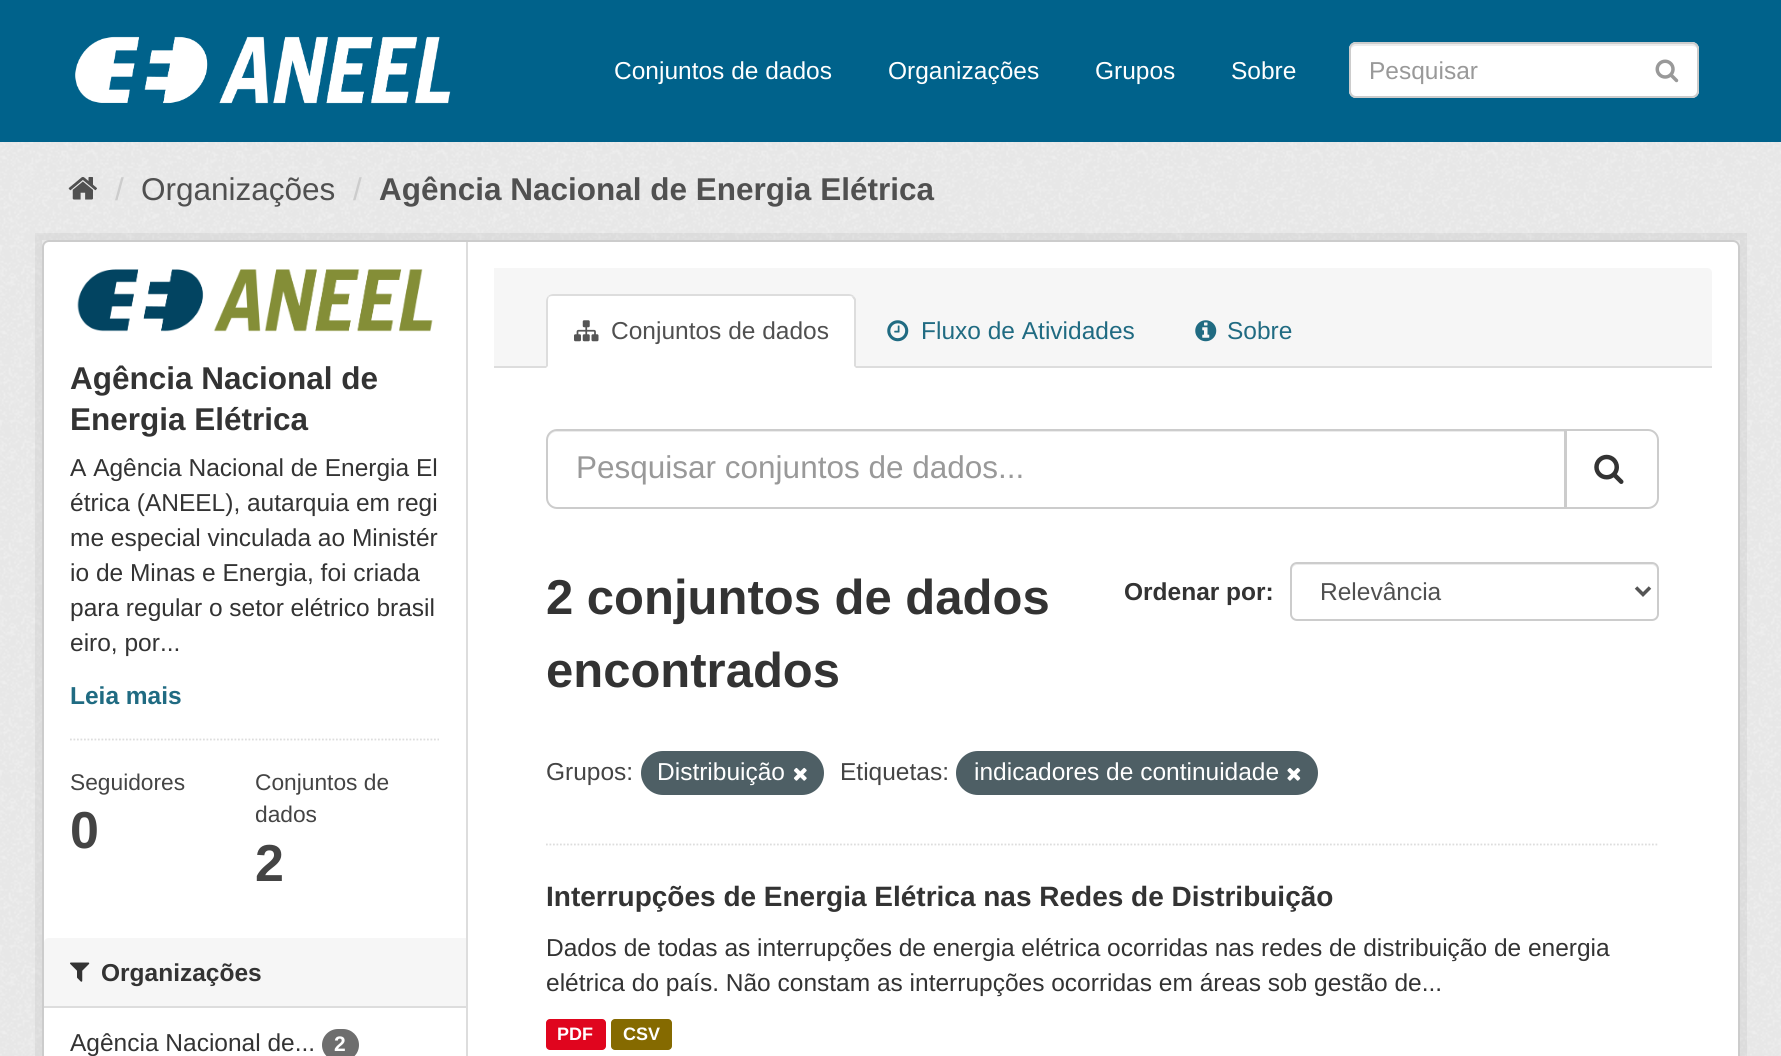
import math
import cairo



def rounded_rect(context, x, y, w, h, r):
    context.new_sub_path()
    for i, (u, v) in enumerate([(x + w - r, y + h - r), (x + r, y + h - r), (x + r, y + r), (x + w - r, y + r)]):
        context.arc(u, v, r, i * math.pi / 2, (i + 1) * math.pi / 2)
    context.close_path()


def draw_image(context, path, x, y, w, h):
    context.save()
    context.set_source_surface(cairo.ImageSurface.create_from_png(path), x, y)
    context.rectangle(x, y, w, h)
    context.fill()
    context.restore()


def draw(context):
    context.set_source_rgb(0, 98 / 255, 139 / 255)
    context.paint()
    draw_image(context, "images/1.png", 75, 36, 376, 68)
    context.set_source_rgb(1, 1, 1)
    rounded_rect(context, 1349, 42, 350, 56, 7)
    context.fill()
    context.set_source_rgb(236 / 255, 236 / 255, 236 / 255)
    context.new_path()
    context.move_to(1356, 46)
    context.line_to(1692, 46)
    context.curve_to(1695, 46, 1698, 48, 1698, 51)
    context.curve_to(1698, 48, 1697, 44, 1693, 44)
    context.line_to(1356, 44)
    context.curve_to(1352, 44, 1351, 48, 1351, 51)
    context.curve_to(1351, 48, 1353, 46, 1356, 46)
    context.close_path()
    context.fill()
    rounded_rect(context, 1350, 43, 348, 54, 6)
    context.set_source_rgb(204 / 255, 204 / 255, 204 / 255)
    context.stroke()
    draw_image(context, "images/2.png", 1655, 59, 24, 24)
    context.set_source_rgb(238 / 255, 238 / 255, 238 / 255)
    context.rectangle(0, 142, 1781, 914)
    context.fill()
    draw_image(context, "images/3.png", 0, 142, 1781, 914)
    draw_image(context, "images/4.png", 68, 177, 29, 23)
    context.rectangle(38.5, 236.5, 1705, 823)
    context.set_source_rgba(0, 0, 0, 0.05)
    context.set_line_width(7)
    context.stroke()
    context.set_source_rgb(1, 1, 1)
    rounded_rect(context, 43, 241, 1696, 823, 6)
    context.fill_preserve()
    context.set_source_rgb(204 / 255, 204 / 255, 204 / 255)
    context.set_line_width(2)
    context.stroke()
    draw_image(context, "images/5.png", 77, 269, 356, 63)
    context.new_path()
    context.move_to(70, 739.5)
    context.line_to(439, 739.5)
    context.set_source_rgb(221 / 255, 221 / 255, 221 / 255)
    context.set_line_width(1.8)
    context.set_dash([1.75, 1.75])
    context.stroke()
    context.set_source_rgb(246 / 255, 246 / 255, 246 / 255)
    context.new_path()
    context.move_to(49, 938)
    context.line_to(466, 938)
    context.line_to(466, 1008)
    context.line_to(44, 1008)
    context.line_to(44, 943)
    context.curve_to(44, 940, 46, 938, 49, 938)
    context.close_path()
    context.fill()
    context.set_source_rgb(221 / 255, 221 / 255, 221 / 255)
    context.rectangle(44, 1006, 422, 2)
    context.fill()
    draw_image(context, "images/6.png", 70, 962, 20, 20)
    context.set_source_rgb(110 / 255, 110 / 255, 110 / 255)
    rounded_rect(context, 322, 1029, 37, 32, 16)
    context.fill()
    context.set_source_rgb(221 / 255, 221 / 255, 221 / 255)
    context.rectangle(466, 242, 2, 814)
    context.fill()
    context.set_source_rgb(246 / 255, 246 / 255, 246 / 255)
    context.new_path()
    context.move_to(494, 268)
    context.line_to(1707, 268)
    context.curve_to(1710, 268, 1712, 270, 1712, 273)
    context.line_to(1712, 368)
    context.line_to(494, 368)
    context.close_path()
    context.fill()
    context.set_source_rgb(221 / 255, 221 / 255, 221 / 255)
    context.rectangle(494, 366, 1218, 2)
    context.fill()
    context.set_source_rgb(1, 1, 1)
    context.new_path()
    context.move_to(553, 294)
    context.line_to(849, 294)
    context.curve_to(853, 294, 856, 297, 856, 301)
    context.line_to(856, 368)
    context.line_to(546, 368)
    context.line_to(546, 301)
    context.curve_to(546, 297, 549, 294, 553, 294)
    context.close_path()
    context.fill()
    context.set_source_rgb(221 / 255, 221 / 255, 221 / 255)
    context.new_path()
    context.move_to(553, 294)
    context.curve_to(551, 294, 549, 295, 548, 296)
    context.line_to(549, 297)
    context.curve_to(550, 296, 552, 296, 553, 296)
    context.line_to(849, 296)
    context.curve_to(850, 296, 852, 296, 852, 297)
    context.line_to(854, 296)
    context.curve_to(853, 295, 851, 294, 849, 294)
    context.close_path()
    context.fill()
    context.new_path()
    context.move_to(854, 296)
    context.line_to(856, 299)
    context.line_to(856, 368)
    context.line_to(854, 366)
    context.line_to(854, 300)
    context.line_to(852, 297)
    context.close_path()
    context.fill()
    context.new_path()
    context.move_to(546, 368)
    context.line_to(548, 366)
    context.line_to(548, 301)
    context.curve_to(548, 300, 548, 298, 549, 297)
    context.line_to(548, 296)
    context.curve_to(547, 297, 546, 299, 546, 301)
    context.close_path()
    context.fill()
    draw_image(context, "images/7.png", 574, 320, 25, 22)
    draw_image(context, "images/8.png", 887, 320, 22, 22)
    draw_image(context, "images/9.png", 1195, 320, 22, 22)
    context.new_path()
    context.move_to(546, 844.5)
    context.line_to(1659, 844.5)
    context.stroke()
    context.set_source_rgb(236 / 255, 236 / 255, 236 / 255)
    context.new_path()
    context.move_to(556, 432)
    context.line_to(1564, 432)
    context.line_to(1564, 508)
    context.line_to(1565, 508)
    context.line_to(1565, 431)
    context.line_to(557, 431)
    context.curve_to(551, 431, 548, 436, 548, 441)
    context.curve_to(548, 436, 552, 432, 556, 432)
    context.close_path()
    context.fill()
    context.new_path()
    context.move_to(557, 430)
    context.line_to(1565, 430)
    context.line_to(1565, 508)
    context.line_to(557, 508)
    context.curve_to(551.5, 508, 547, 503.5, 547, 498)
    context.line_to(547, 440)
    context.curve_to(547, 434.5, 551.5, 430, 557, 430)
    context.close_path()
    context.set_source_rgb(204 / 255, 204 / 255, 204 / 255)
    context.set_line_width(2)
    context.set_dash([])
    context.stroke()
    context.set_source_rgb(1, 1, 1)
    context.new_path()
    context.move_to(1566, 430)
    context.line_to(1648, 430)
    context.curve_to(1653.5, 430, 1658, 434.5, 1658, 440)
    context.line_to(1658, 498)
    context.curve_to(1658, 503.5, 1653.5, 508, 1648, 508)
    context.line_to(1566, 508)
    context.close_path()
    context.fill_preserve()
    context.set_source_rgb(204 / 255, 204 / 255, 204 / 255)
    context.stroke()
    draw_image(context, "images/10.png", 1594, 454, 30, 30)
    context.set_source_rgb(236 / 255, 236 / 255, 236 / 255)
    context.new_path()
    context.move_to(1297, 565)
    context.line_to(1652, 565)
    context.curve_to(1655, 565, 1657, 568, 1657, 570)
    context.line_to(1657, 569)
    context.curve_to(1657, 566, 1655, 564, 1652, 564)
    context.line_to(1297, 564)
    context.curve_to(1294, 564, 1292, 566, 1292, 569)
    context.line_to(1292, 570)
    context.curve_to(1292, 568, 1294, 565, 1297, 565)
    context.close_path()
    context.fill()
    rounded_rect(context, 1291, 563, 367, 57, 6)
    context.set_source_rgb(204 / 255, 204 / 255, 204 / 255)
    context.stroke()
    context.new_path()
    context.move_to(1636, 587.5)
    context.line_to(1643, 594.5)
    context.line_to(1650, 587.5)
    context.set_source_rgb(85 / 255, 85 / 255, 85 / 255)
    context.set_line_width(3.5)
    context.stroke()
    context.set_source_rgb(78 / 255, 95 / 255, 101 / 255)
    rounded_rect(context, 641, 751, 183, 44, 22)
    context.fill()
    draw_image(context, "images/11.png", 793, 767, 14, 14)
    rounded_rect(context, 956, 751, 362, 44, 22)
    context.fill()
    draw_image(context, "images/12.png", 1287, 767, 14, 14)
    context.set_source_rgb(224 / 255, 5 / 255, 30 / 255)
    rounded_rect(context, 546, 1019, 60, 31, 4)
    context.fill()
    context.set_source_rgb(133 / 255, 106 / 255, 0)
    rounded_rect(context, 611, 1019, 61, 31, 4)
    context.fill()
    context.select_font_face("Liberation Sans")
    context.set_font_size(24.5)
    context.set_source_rgb(1, 1, 1)
    context.move_to(614, 79)
    context.show_text("Conjuntos de dados")
    context.move_to(888, 79)
    context.show_text("Organizações")
    context.move_to(1095, 79)
    context.show_text("Grupos")
    context.move_to(1231, 79)
    context.show_text("Sobre")
    context.set_source_rgb(153 / 255, 153 / 255, 153 / 255)
    context.move_to(1369, 79)
    context.show_text("Pesquisar")
    context.set_font_size(31.5)
    context.set_source_rgb(204 / 255, 204 / 255, 204 / 255)
    context.move_to(115, 200)
    context.show_text("/")
    context.set_source_rgb(80 / 255, 80 / 255, 80 / 255)
    context.move_to(141, 200)
    context.show_text("Organizações")
    context.set_source_rgb(204 / 255, 204 / 255, 204 / 255)
    context.move_to(353, 200)
    context.show_text("/")
    context.select_font_face("Liberation Sans", cairo.FontSlant.NORMAL, cairo.FontWeight.BOLD)
    context.set_source_rgb(80 / 255, 80 / 255, 80 / 255)
    context.move_to(379, 200)
    context.show_text("Agência Nacional de Energia Elétrica")
    context.set_source_rgb(51 / 255, 51 / 255, 51 / 255)
    context.move_to(70, 389)
    context.show_text("Agência Nacional de")
    context.move_to(70, 430)
    context.show_text("Energia Elétrica")
    context.select_font_face("Liberation Sans")
    context.set_font_size(24.5)
    context.move_to(70, 476)
    context.show_text("A Agência Nacional de Energia El")
    context.move_to(70, 511)
    context.show_text("étrica (ANEEL), autarquia em regi")
    context.move_to(70, 546)
    context.show_text("me especial vinculada ao Ministér")
    context.move_to(70, 581)
    context.show_text("io de Minas e Energia, foi criada")
    context.move_to(70, 616)
    context.show_text("para regular o setor elétrico brasil")
    context.move_to(70, 651)
    context.show_text("eiro, por...")
    context.select_font_face("Liberation Sans", cairo.FontSlant.NORMAL, cairo.FontWeight.BOLD)
    context.set_source_rgb(32 / 255, 107 / 255, 130 / 255)
    context.move_to(70, 704)
    context.show_text("Leia mais")
    context.select_font_face("Liberation Sans")
    context.set_font_size(22.75)
    context.set_source_rgb(68 / 255, 68 / 255, 68 / 255)
    context.move_to(70, 790)
    context.show_text("Seguidores")
    context.select_font_face("Liberation Sans", cairo.FontSlant.NORMAL, cairo.FontWeight.BOLD)
    context.set_font_size(52)
    context.move_to(70, 848)
    context.show_text("0")
    context.select_font_face("Liberation Sans")
    context.set_font_size(22.75)
    context.move_to(255, 790)
    context.show_text("Conjuntos de")
    context.move_to(255, 822)
    context.show_text("dados")
    context.select_font_face("Liberation Sans", cairo.FontSlant.NORMAL, cairo.FontWeight.BOLD)
    context.set_font_size(52)
    context.move_to(255, 881)
    context.show_text("2")
    context.set_font_size(24.5)
    context.set_source_rgb(51 / 255, 51 / 255, 51 / 255)
    context.move_to(101, 981)
    context.show_text("Organizações")
    context.select_font_face("Liberation Sans")
    context.move_to(70, 1051)
    context.show_text("Agência Nacional de...")
    context.select_font_face("Liberation Sans", cairo.FontSlant.NORMAL, cairo.FontWeight.BOLD)
    context.set_font_size(21)
    context.set_source_rgb(1, 1, 1)
    context.move_to(334, 1051)
    context.show_text("2")
    context.select_font_face("Liberation Sans")
    context.set_font_size(24.5)
    context.set_source_rgb(80 / 255, 80 / 255, 80 / 255)
    context.move_to(611, 339)
    context.show_text("Conjuntos de dados")
    context.set_source_rgb(32 / 255, 107 / 255, 130 / 255)
    context.move_to(921, 339)
    context.show_text("Fluxo de Atividades")
    context.move_to(1227, 339)
    context.show_text("Sobre")
    context.set_font_size(31.5)
    context.set_source_rgb(153 / 255, 153 / 255, 153 / 255)
    context.move_to(576, 478)
    context.show_text("Pesquisar conjuntos de dados...")
    context.select_font_face("Liberation Sans", cairo.FontSlant.NORMAL, cairo.FontWeight.BOLD)
    context.set_font_size(49)
    context.set_source_rgb(51 / 255, 51 / 255, 51 / 255)
    context.move_to(546, 614)
    context.show_text("2 conjuntos de dados")
    context.move_to(546, 687)
    context.show_text("encontrados")
    context.set_font_size(24.5)
    context.move_to(1124, 600)
    context.show_text("Ordenar por:")
    context.select_font_face("Liberation Sans")
    context.set_source_rgb(80 / 255, 80 / 255, 80 / 255)
    context.move_to(1320, 600)
    context.show_text("Relevância")
    context.set_source_rgb(68 / 255, 68 / 255, 68 / 255)
    context.move_to(546, 780)
    context.show_text("Grupos:")
    context.set_source_rgb(1, 1, 1)
    context.move_to(657, 780)
    context.show_text("Distribuição")
    context.set_source_rgb(68 / 255, 68 / 255, 68 / 255)
    context.move_to(840, 780)
    context.show_text("Etiquetas:")
    context.set_source_rgb(1, 1, 1)
    context.move_to(974, 780)
    context.show_text("indicadores de continuidade")
    context.select_font_face("Liberation Sans", cairo.FontSlant.NORMAL, cairo.FontWeight.BOLD)
    context.set_font_size(28)
    context.set_source_rgb(51 / 255, 51 / 255, 51 / 255)
    context.move_to(546, 906)
    context.show_text("Interrupções de Energia Elétrica nas Redes de Distribuição")
    context.select_font_face("Liberation Sans")
    context.set_font_size(24.5)
    context.move_to(546, 956)
    context.show_text("Dados de todas as interrupções de energia elétrica ocorridas nas redes de distribuição de energia")
    context.move_to(546, 991)
    context.show_text("elétrica do país. Não constam as interrupções ocorridas em áreas sob gestão de...")
    context.select_font_face("Liberation Sans", cairo.FontSlant.NORMAL, cairo.FontWeight.BOLD)
    context.set_font_size(18)
    context.set_source_rgb(1, 1, 1)
    context.move_to(557, 1040)
    context.show_text("PDF")
    context.move_to(623, 1040)
    context.show_text("CSV")


surface = cairo.ImageSurface(cairo.Format.RGB24, 1781, 1056)
context = cairo.Context(surface)
options = cairo.FontOptions()
options.set_hint_metrics(cairo.HintMetrics.OFF)
options.set_hint_style(cairo.HintStyle.NONE)
context.set_font_options(options)
context.set_miter_limit(4)
draw(context)
surface.write_to_png("out.png")
